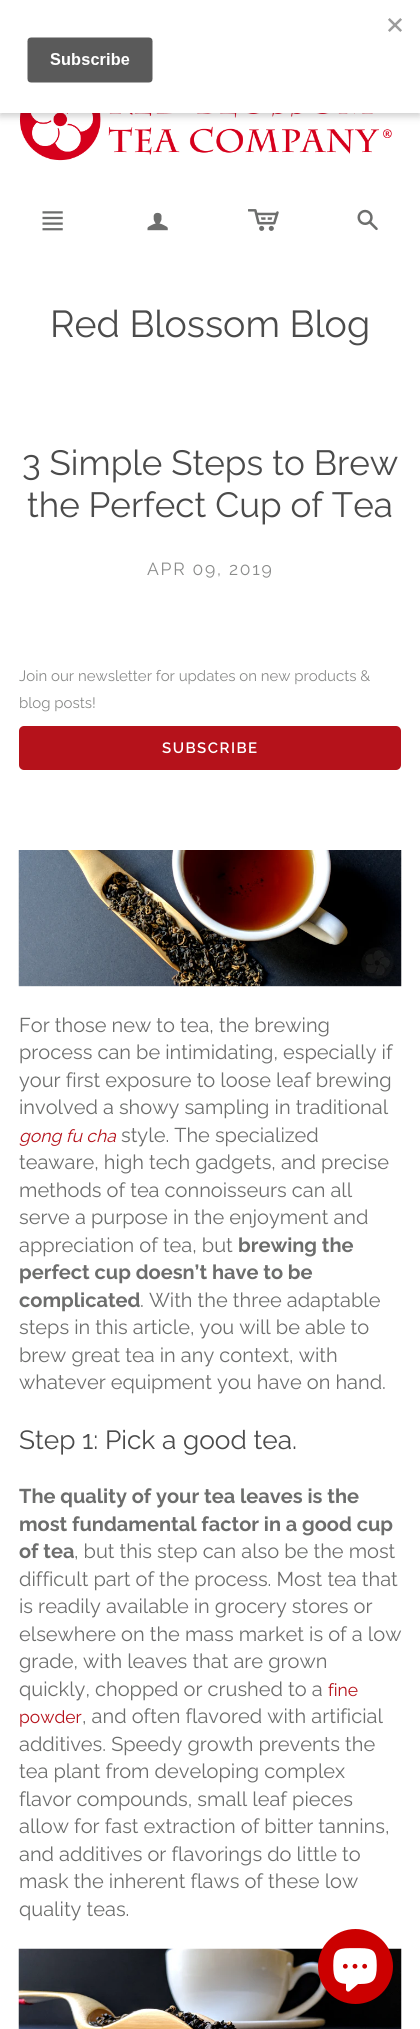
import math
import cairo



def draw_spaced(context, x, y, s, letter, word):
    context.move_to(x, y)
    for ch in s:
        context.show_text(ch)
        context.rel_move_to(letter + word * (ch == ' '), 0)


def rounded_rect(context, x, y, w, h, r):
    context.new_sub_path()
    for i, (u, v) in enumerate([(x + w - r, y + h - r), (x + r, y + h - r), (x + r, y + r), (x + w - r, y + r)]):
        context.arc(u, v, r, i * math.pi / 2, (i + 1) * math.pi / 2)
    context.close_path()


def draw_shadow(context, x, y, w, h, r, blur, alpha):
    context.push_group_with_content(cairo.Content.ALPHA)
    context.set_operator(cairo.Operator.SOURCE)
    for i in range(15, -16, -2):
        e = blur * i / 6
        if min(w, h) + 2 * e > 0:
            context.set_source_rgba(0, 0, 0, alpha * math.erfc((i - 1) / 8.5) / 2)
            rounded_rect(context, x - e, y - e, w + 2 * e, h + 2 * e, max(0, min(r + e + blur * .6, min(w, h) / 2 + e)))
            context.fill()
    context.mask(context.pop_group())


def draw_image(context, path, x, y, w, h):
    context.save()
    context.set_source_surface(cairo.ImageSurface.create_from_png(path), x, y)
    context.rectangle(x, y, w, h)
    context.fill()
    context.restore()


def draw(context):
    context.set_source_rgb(1, 1, 1)
    context.paint()
    draw_image(context, "images/2.png", 19, 113, 373, 48)
    context.set_source_rgb(0, 0, 0)
    draw_shadow(context, 0, 4, 420, 112, 0, 4, 0.2)
    context.set_source_rgb(1, 1, 1)
    context.rectangle(0, 0, 420, 113)
    context.fill()
    draw_image(context, "images/1.png", 27, 18, 375, 65)
    draw_image(context, "images/3.png", 42, 211, 21, 20)
    draw_image(context, "images/4.png", 147, 212, 21, 19)
    draw_image(context, "images/5.png", 248, 209, 31, 22)
    draw_image(context, "images/6.png", 357, 209, 21, 22)
    context.set_source_rgb(181 / 255, 18 / 255, 27 / 255)
    rounded_rect(context, 19, 726, 382, 44, 5)
    context.fill()
    draw_image(context, "images/7.png", 18, 850, 384, 137)
    draw_image(context, "images/8.png", 18, 1948, 384, 81)
    context.set_source_rgb(204 / 255, 0, 0)
    context.arc(355.5, 1966.5, 37.5, 0, 2 * math.pi)
    context.fill()
    draw_image(context, "images/9.png", 333, 1948, 44, 44)
    context.select_font_face("Raleway")
    context.set_font_size(37.5)
    context.set_source_rgb(75 / 255, 75 / 255, 75 / 255)
    context.move_to(50, 337)
    context.show_text("Red Blossom Blog")
    context.set_font_size(35)
    context.move_to(22, 475)
    context.show_text("3 Simple Steps to Brew")
    context.move_to(27, 517)
    context.show_text("the Perfect Cup of Tea")
    context.set_font_size(17.5)
    context.set_source_rgb(138 / 255, 139 / 255, 138 / 255)
    draw_spaced(context, 147, 575, "APR 09, 2019", 1.75, 0)
    context.set_font_size(15)
    context.move_to(19, 681)
    context.show_text("Join our newsletter for updates on new products &")
    context.move_to(19, 708)
    context.show_text("blog posts!")
    context.select_font_face("Raleway SemiBold")
    context.set_source_rgb(1, 1, 1)
    draw_spaced(context, 162, 753, "SUBSCRIBE", 1.5, 0)
    context.select_font_face("Raleway")
    context.set_font_size(20)
    context.set_source_rgb(109 / 255, 110 / 255, 109 / 255)
    context.move_to(19, 1032)
    context.show_text("For those new to tea, the brewing")
    context.move_to(19, 1059)
    context.show_text("process can be intimidating, especially if")
    context.move_to(19, 1087)
    context.show_text("your first exposure to loose leaf brewing")
    context.move_to(19, 1114)
    context.show_text("involved a showy sampling in traditional")
    context.select_font_face("Raleway", cairo.FontSlant.ITALIC)
    context.set_font_size(17.5)
    context.set_source_rgb(181 / 255, 18 / 255, 27 / 255)
    context.move_to(19, 1142)
    context.show_text("gong fu cha")
    context.select_font_face("Raleway")
    context.set_font_size(20)
    context.set_source_rgb(109 / 255, 110 / 255, 109 / 255)
    context.move_to(121, 1142)
    context.show_text("style. The specialized")
    context.move_to(19, 1169)
    context.show_text("teaware, high tech gadgets, and precise")
    context.move_to(19, 1197)
    context.show_text("methods of tea connoisseurs can all")
    context.move_to(19, 1224)
    context.show_text("serve a purpose in the enjoyment and")
    context.move_to(19, 1252)
    context.show_text("appreciation of tea, but")
    context.select_font_face("Raleway", cairo.FontSlant.NORMAL, cairo.FontWeight.BOLD)
    context.move_to(238, 1252)
    context.show_text("brewing the")
    context.move_to(19, 1279)
    context.show_text("perfect cup doesn’t have to be")
    context.move_to(19, 1307)
    context.show_text("complicated")
    context.select_font_face("Raleway")
    context.move_to(140, 1307)
    context.show_text(". With the three adaptable")
    context.move_to(19, 1334)
    context.show_text("steps in this article, you will be able to")
    context.move_to(19, 1362)
    context.show_text("brew great tea in any context, with")
    context.move_to(19, 1389)
    context.show_text("whatever equipment you have on hand.")
    context.set_font_size(26.25)
    context.set_source_rgb(75 / 255, 75 / 255, 75 / 255)
    context.move_to(19, 1449)
    context.show_text("Step 1: Pick a good tea.")
    context.select_font_face("Raleway", cairo.FontSlant.NORMAL, cairo.FontWeight.BOLD)
    context.set_font_size(20)
    context.set_source_rgb(109 / 255, 110 / 255, 109 / 255)
    context.move_to(19, 1503)
    context.show_text("The quality of your tea leaves is the")
    context.move_to(19, 1531)
    context.show_text("most fundamental factor in a good cup")
    context.move_to(19, 1558)
    context.show_text("of tea")
    context.select_font_face("Raleway")
    context.move_to(74, 1558)
    context.show_text(", but this step can also be the most")
    context.move_to(19, 1586)
    context.show_text("difficult part of the process. Most tea that")
    context.move_to(19, 1613)
    context.show_text("is readily available in grocery stores or")
    context.move_to(19, 1641)
    context.show_text("elsewhere on the mass market is of a low")
    context.move_to(19, 1668)
    context.show_text("grade, with leaves that are grown")
    context.move_to(19, 1696)
    context.show_text("quickly, chopped or crushed to a")
    context.set_font_size(17.5)
    context.set_source_rgb(181 / 255, 18 / 255, 27 / 255)
    context.move_to(328, 1696)
    context.show_text("fine")
    context.move_to(19, 1723)
    context.show_text("powder")
    context.set_font_size(20)
    context.set_source_rgb(109 / 255, 110 / 255, 109 / 255)
    context.move_to(82, 1723)
    context.show_text(", and often flavored with artificial")
    context.move_to(19, 1751)
    context.show_text("additives. Speedy growth prevents the")
    context.move_to(19, 1778)
    context.show_text("tea plant from developing complex")
    context.move_to(19, 1806)
    context.show_text("flavor compounds, small leaf pieces")
    context.move_to(19, 1833)
    context.show_text("allow for fast extraction of bitter tannins,")
    context.move_to(19, 1861)
    context.show_text("and additives or flavorings do little to")
    context.move_to(19, 1888)
    context.show_text("mask the inherent flaws of these low")
    context.move_to(19, 1916)
    context.show_text("quality teas.")


surface = cairo.ImageSurface(cairo.Format.RGB24, 420, 2029)
context = cairo.Context(surface)
options = cairo.FontOptions()
options.set_hint_metrics(cairo.HintMetrics.OFF)
options.set_hint_style(cairo.HintStyle.NONE)
context.set_font_options(options)
context.set_miter_limit(4)
draw(context)
surface.write_to_png("out.png")
